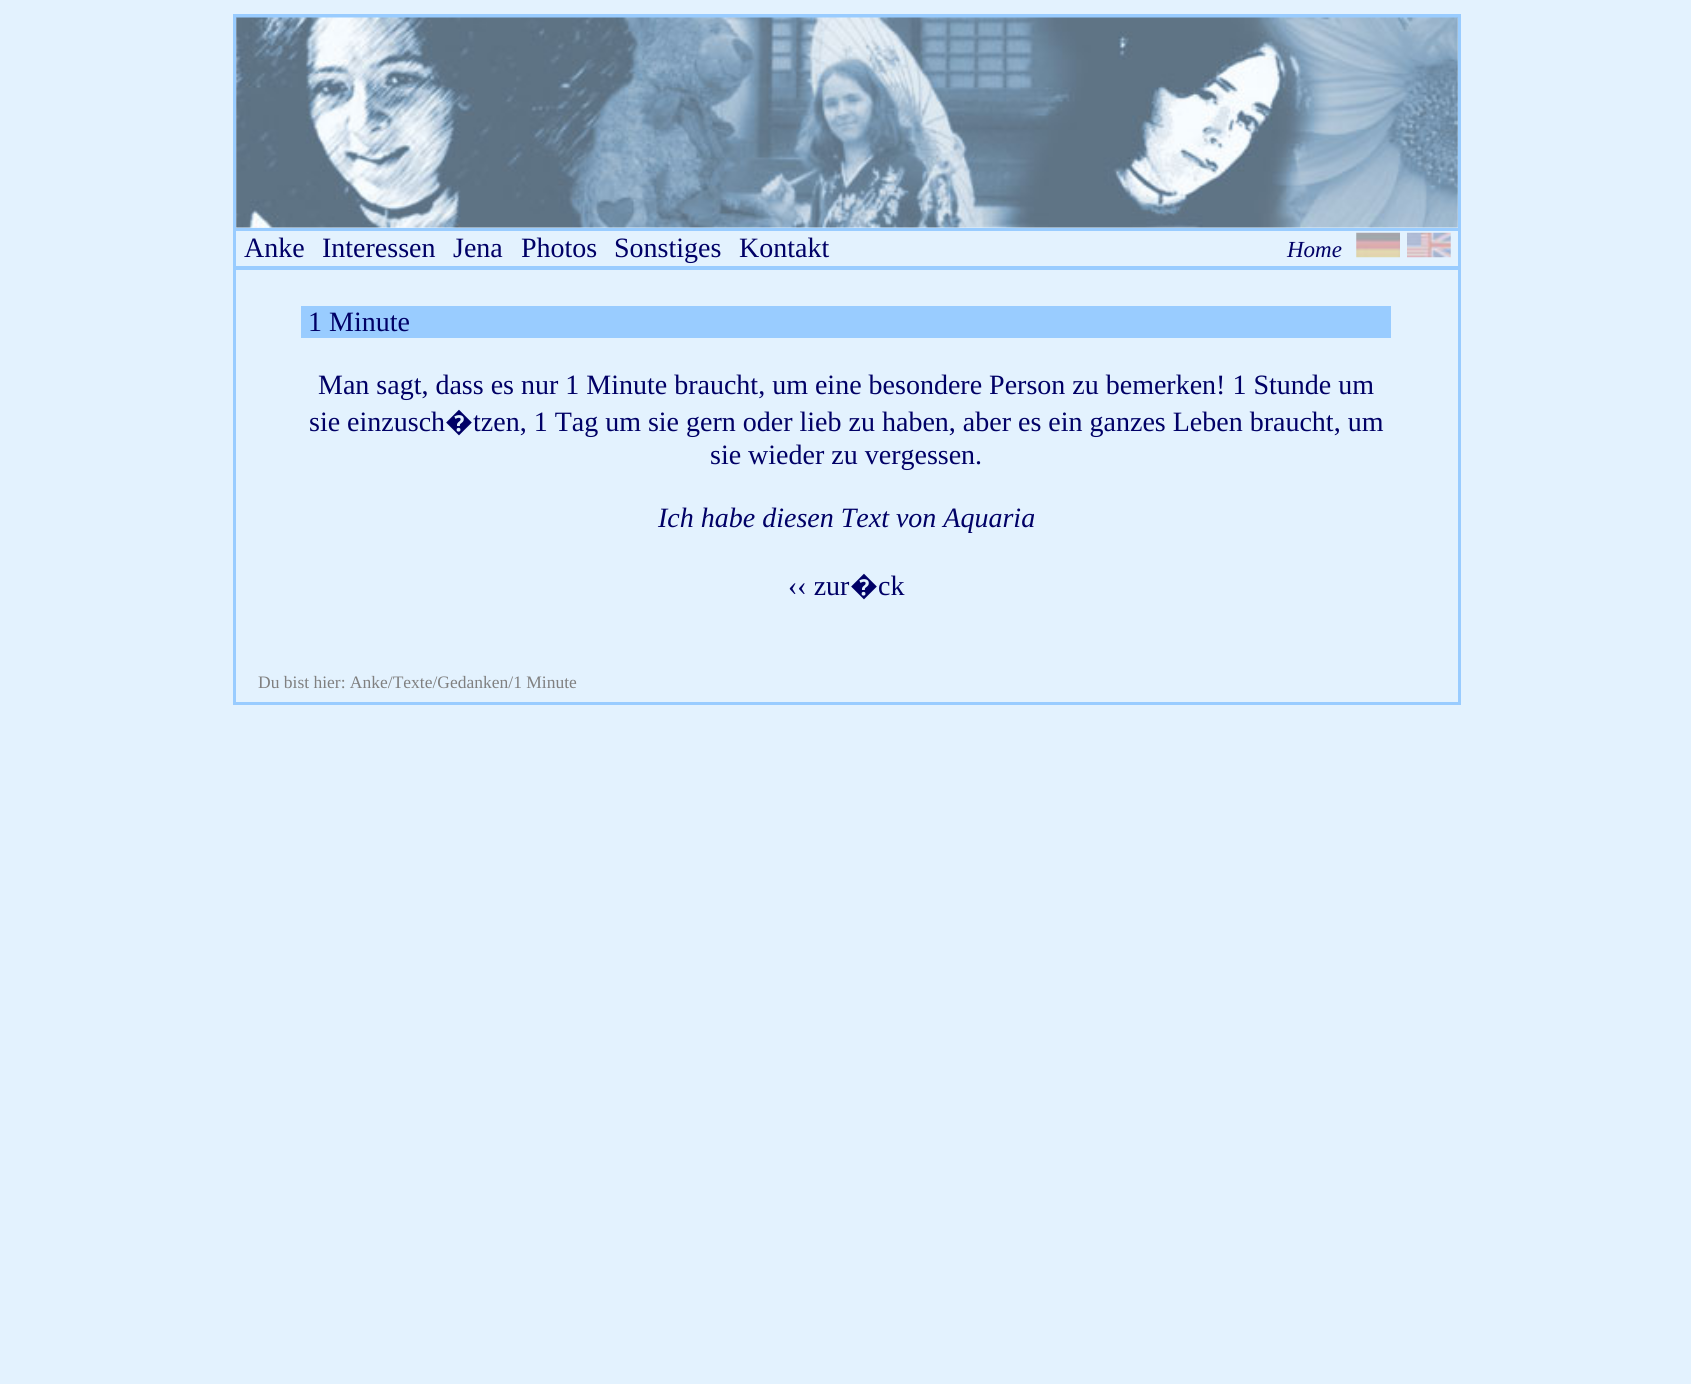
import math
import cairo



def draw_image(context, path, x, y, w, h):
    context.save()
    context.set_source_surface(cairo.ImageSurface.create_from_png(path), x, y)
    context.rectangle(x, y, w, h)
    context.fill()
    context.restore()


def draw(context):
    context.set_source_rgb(227 / 255, 242 / 255, 254 / 255)
    context.paint()
    context.set_source_rgb(153 / 255, 204 / 255, 1)
    context.rectangle(233, 14, 1228, 691)
    context.fill()
    context.set_source_rgb(227 / 255, 242 / 255, 254 / 255)
    context.rectangle(236, 18, 1222, 210)
    context.fill()
    draw_image(context, "images/1.png", 236, 17, 1222, 211)
    context.rectangle(236, 231, 1222, 35)
    context.fill()
    draw_image(context, "images/2.png", 1356, 232, 44, 26)
    draw_image(context, "images/3.png", 1407, 232, 44, 26)
    context.rectangle(236, 270, 1222, 432)
    context.fill()
    context.set_source_rgb(153 / 255, 204 / 255, 1)
    context.rectangle(301, 306, 1090, 32)
    context.fill()
    context.select_font_face("Liberation Serif")
    context.set_font_size(28)
    context.set_source_rgb(0, 0, 102 / 255)
    context.move_to(244, 257)
    context.show_text("Anke")
    context.move_to(322, 257)
    context.show_text("Interessen")
    context.move_to(453, 257)
    context.show_text("Jena")
    context.move_to(521, 257)
    context.show_text("Photos")
    context.move_to(614, 257)
    context.show_text("Sonstiges")
    context.move_to(739, 257)
    context.show_text("Kontakt")
    context.select_font_face("Liberation Serif", cairo.FontSlant.ITALIC)
    context.set_font_size(23)
    context.move_to(1287, 257)
    context.show_text("Home")
    context.select_font_face("Liberation Serif")
    context.set_font_size(28)
    context.move_to(308, 331)
    context.show_text("1 Minute")
    context.move_to(318, 394)
    context.show_text("Man sagt, dass es nur 1 Minute braucht, um eine besondere Person zu bemerken! 1 Stunde um")
    context.move_to(309, 431)
    context.show_text("sie einzusch")
    context.select_font_face("Noto Sans")
    context.move_to(445, 431)
    context.show_text("�")
    context.select_font_face("Liberation Serif")
    context.move_to(473, 431)
    context.show_text("tzen, 1 Tag um sie gern oder lieb zu haben, aber es ein ganzes Leben braucht, um")
    context.move_to(710, 464)
    context.show_text("sie wieder zu vergessen.")
    context.select_font_face("Liberation Serif", cairo.FontSlant.ITALIC)
    context.move_to(658, 527)
    context.show_text("Ich habe diesen Text von Aquaria")
    context.select_font_face("Liberation Serif")
    context.move_to(788, 595)
    context.show_text("‹‹ zur")
    context.select_font_face("Noto Sans")
    context.move_to(850, 595)
    context.show_text("�")
    context.select_font_face("Liberation Serif")
    context.move_to(878, 595)
    context.show_text("ck")
    context.set_font_size(17.5)
    context.set_source_rgb(128 / 255, 128 / 255, 128 / 255)
    context.move_to(258, 688)
    context.show_text("Du bist hier: Anke/Texte/Gedanken/1 Minute")


surface = cairo.ImageSurface(cairo.Format.RGB24, 1691, 1384)
context = cairo.Context(surface)
options = cairo.FontOptions()
options.set_hint_metrics(cairo.HintMetrics.OFF)
options.set_hint_style(cairo.HintStyle.NONE)
context.set_font_options(options)
context.set_miter_limit(4)
draw(context)
surface.write_to_png("out.png")
